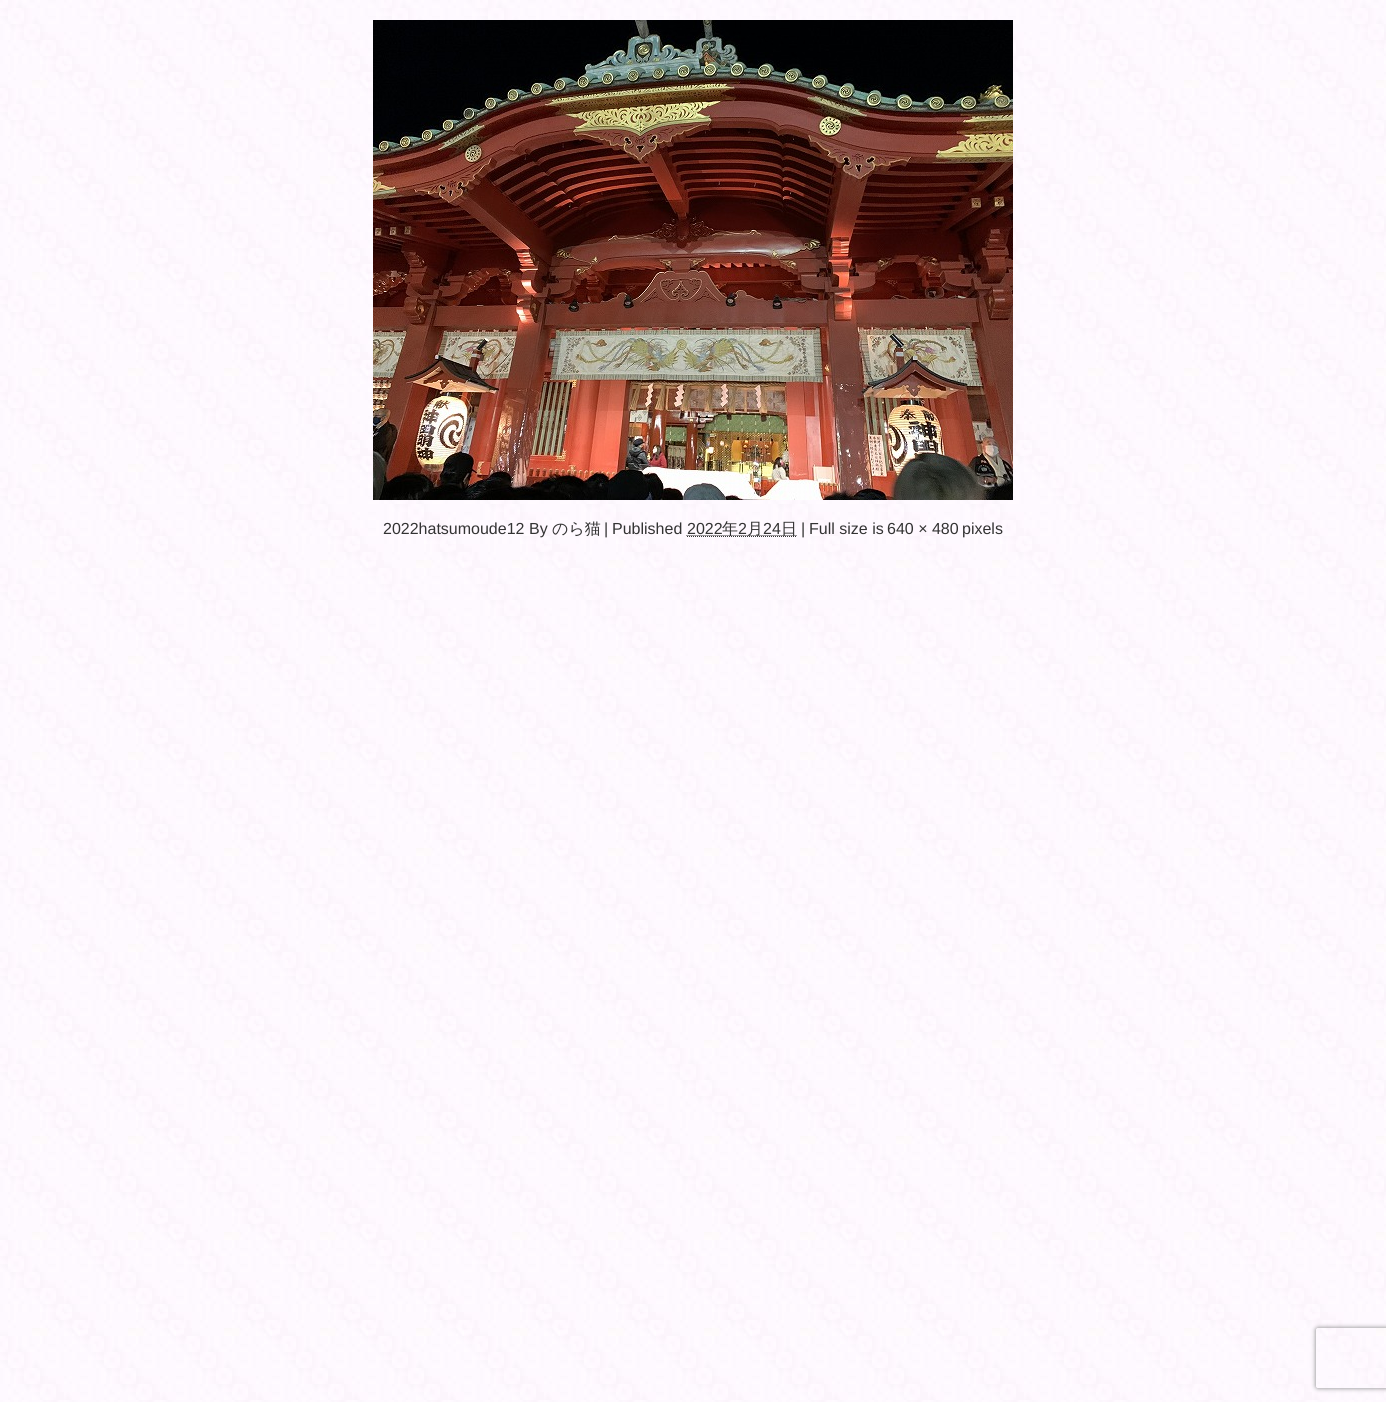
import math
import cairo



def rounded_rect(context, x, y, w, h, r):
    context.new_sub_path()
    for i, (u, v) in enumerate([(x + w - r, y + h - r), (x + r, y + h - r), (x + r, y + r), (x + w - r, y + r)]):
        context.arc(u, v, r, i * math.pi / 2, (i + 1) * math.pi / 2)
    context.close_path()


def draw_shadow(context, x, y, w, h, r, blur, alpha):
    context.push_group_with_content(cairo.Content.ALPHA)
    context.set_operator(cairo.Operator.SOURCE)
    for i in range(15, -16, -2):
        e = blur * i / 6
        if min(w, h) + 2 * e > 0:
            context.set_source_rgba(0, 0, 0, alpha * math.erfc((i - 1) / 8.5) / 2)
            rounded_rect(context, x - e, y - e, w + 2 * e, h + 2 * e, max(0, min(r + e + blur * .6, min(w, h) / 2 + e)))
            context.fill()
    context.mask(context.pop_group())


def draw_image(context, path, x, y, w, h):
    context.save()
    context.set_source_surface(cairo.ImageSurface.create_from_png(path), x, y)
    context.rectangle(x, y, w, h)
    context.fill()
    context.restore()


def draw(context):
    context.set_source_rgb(1, 1, 1)
    context.paint()
    draw_image(context, "images/1.png", 0, 0, 1386, 1402)
    draw_image(context, "images/2.png", 373, 20, 640, 480)
    context.new_path()
    context.move_to(687, 536.5)
    context.line_to(797, 536.5)
    context.set_source_rgb(51 / 255, 51 / 255, 51 / 255)
    context.set_line_width(1)
    context.set_dash([1, 1])
    context.stroke()
    context.new_path()
    context.move_to(686.5, 535.5)
    context.line_to(797, 535.5)
    context.stroke()
    context.save()
    context.set_fill_rule(cairo.FillRule.EVEN_ODD)
    context.new_path()
    context.move_to(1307, 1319)
    context.line_to(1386, 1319)
    context.line_to(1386, 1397)
    context.line_to(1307, 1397)
    context.close_path()
    context.move_to(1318, 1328)
    context.line_to(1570, 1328)
    context.curve_to(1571, 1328, 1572, 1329, 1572, 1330)
    context.line_to(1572, 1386)
    context.curve_to(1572, 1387, 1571, 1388, 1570, 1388)
    context.line_to(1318, 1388)
    context.curve_to(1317, 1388, 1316, 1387, 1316, 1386)
    context.line_to(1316, 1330)
    context.curve_to(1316, 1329, 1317, 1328, 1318, 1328)
    context.close_path()
    context.clip()
    context.set_source_rgb(128 / 255, 128 / 255, 128 / 255)
    draw_shadow(context, 1316, 1328, 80, 60, 2, 2.5, 1)
    context.restore()
    context.select_font_face("Liberation Sans")
    context.set_font_size(16)
    context.move_to(383, 534)
    context.show_text("2022hatsumoude12")
    context.move_to(529, 534)
    context.show_text("By")
    context.select_font_face("WenQuanYi Zen Hei Medium")
    context.move_to(552, 534)
    context.show_text("のら猫")
    context.select_font_face("Liberation Sans")
    context.move_to(604, 534)
    context.show_text("|")
    context.move_to(612, 534)
    context.show_text("Published")
    context.move_to(687, 534)
    context.show_text("2022")
    context.select_font_face("WenQuanYi Zen Hei Medium")
    context.move_to(722, 534)
    context.show_text("年")
    context.select_font_face("Liberation Sans")
    context.move_to(738, 534)
    context.show_text("2")
    context.select_font_face("WenQuanYi Zen Hei Medium")
    context.move_to(747, 534)
    context.show_text("月")
    context.select_font_face("Liberation Sans")
    context.move_to(763, 534)
    context.show_text("24")
    context.select_font_face("WenQuanYi Zen Hei Medium")
    context.move_to(781, 534)
    context.show_text("日")
    context.select_font_face("Liberation Sans")
    context.move_to(801, 534)
    context.show_text("|")
    context.move_to(809, 534)
    context.show_text("Full size is")
    context.move_to(887, 534)
    context.show_text("640 × 480")
    context.move_to(962, 534)
    context.show_text("pixels")


surface = cairo.ImageSurface(cairo.Format.RGB24, 1386, 1402)
context = cairo.Context(surface)
options = cairo.FontOptions()
options.set_hint_metrics(cairo.HintMetrics.OFF)
options.set_hint_style(cairo.HintStyle.NONE)
context.set_font_options(options)
context.set_miter_limit(4)
draw(context)
surface.write_to_png("out.png")
